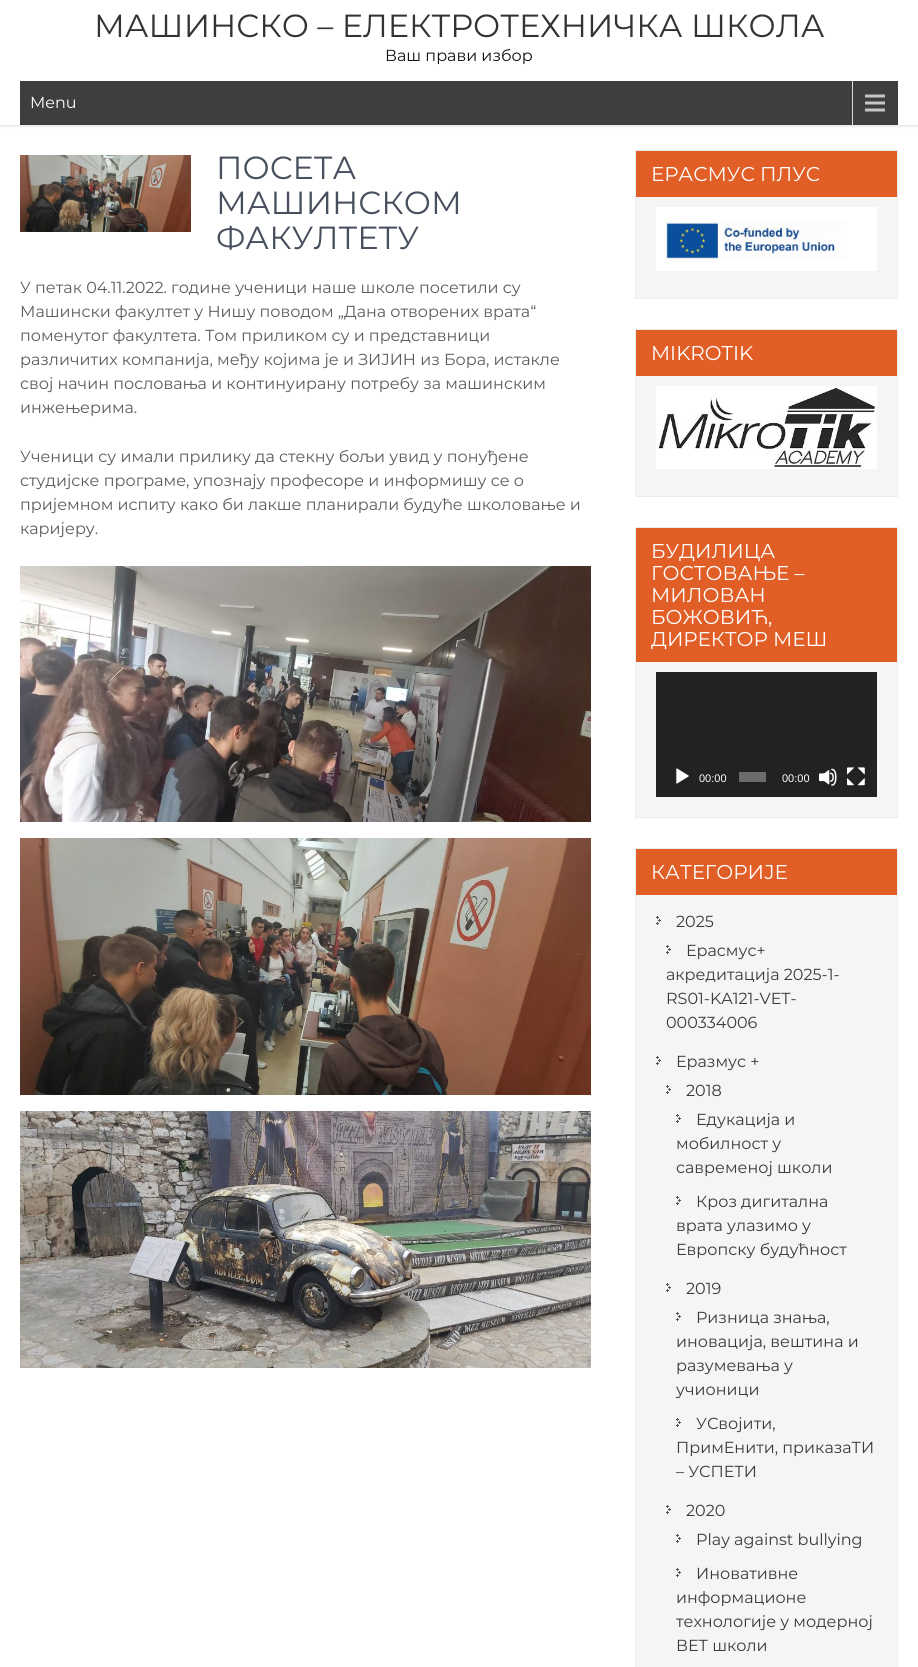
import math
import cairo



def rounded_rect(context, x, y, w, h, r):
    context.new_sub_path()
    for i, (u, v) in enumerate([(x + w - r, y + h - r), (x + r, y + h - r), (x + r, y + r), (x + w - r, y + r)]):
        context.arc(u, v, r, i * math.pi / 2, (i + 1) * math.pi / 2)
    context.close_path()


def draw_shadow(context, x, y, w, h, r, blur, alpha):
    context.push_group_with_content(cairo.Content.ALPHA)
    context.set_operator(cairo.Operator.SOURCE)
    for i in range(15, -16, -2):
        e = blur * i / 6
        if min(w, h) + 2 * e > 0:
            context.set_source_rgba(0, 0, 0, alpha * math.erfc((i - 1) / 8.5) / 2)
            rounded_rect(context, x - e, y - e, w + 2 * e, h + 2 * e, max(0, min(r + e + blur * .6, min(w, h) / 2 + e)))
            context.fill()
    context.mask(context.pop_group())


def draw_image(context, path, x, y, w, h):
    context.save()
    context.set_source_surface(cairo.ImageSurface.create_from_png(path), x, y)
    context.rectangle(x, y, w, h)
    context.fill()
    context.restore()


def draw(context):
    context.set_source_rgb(1, 1, 1)
    context.paint()
    context.save()
    context.rectangle(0, 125, 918, 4)
    context.clip()
    context.set_source_rgb(221 / 255, 221 / 255, 221 / 255)
    draw_shadow(context, 0, 1, 918, 125, 0, 1.5, 1)
    context.restore()
    context.set_source_rgb(62 / 255, 62 / 255, 62 / 255)
    context.rectangle(20, 81, 878, 44)
    context.fill()
    draw_image(context, "images/1.png", 852, 81, 33, 44)
    draw_image(context, "images/2.png", 20, 155, 171, 77)
    draw_image(context, "images/3.png", 20, 566, 571, 256)
    draw_image(context, "images/4.png", 20, 838, 571, 257)
    draw_image(context, "images/5.png", 20, 1111, 571, 257)
    context.set_source_rgb(246 / 255, 244 / 255, 244 / 255)
    context.rectangle(636, 197, 261, 101)
    context.fill()
    context.rectangle(635.5, 150.5, 262, 148)
    context.set_source_rgb(237 / 255, 236 / 255, 236 / 255)
    context.set_line_width(1)
    context.stroke()
    context.set_source_rgb(225 / 255, 94 / 255, 38 / 255)
    context.rectangle(636, 151, 261, 46)
    context.fill()
    draw_image(context, "images/6.png", 656, 207, 221, 64)
    context.set_source_rgb(246 / 255, 244 / 255, 244 / 255)
    context.rectangle(636, 376, 261, 120)
    context.fill()
    context.rectangle(635.5, 329.5, 262, 167)
    context.set_source_rgb(237 / 255, 236 / 255, 236 / 255)
    context.stroke()
    context.set_source_rgb(225 / 255, 94 / 255, 38 / 255)
    context.rectangle(636, 330, 261, 46)
    context.fill()
    draw_image(context, "images/7.png", 656, 386, 221, 83)
    context.set_source_rgb(246 / 255, 244 / 255, 244 / 255)
    context.rectangle(636, 662, 261, 155)
    context.fill()
    context.rectangle(635.5, 527.5, 262, 290)
    context.set_source_rgb(237 / 255, 236 / 255, 236 / 255)
    context.stroke()
    context.set_source_rgb(225 / 255, 94 / 255, 38 / 255)
    context.rectangle(636, 528, 261, 134)
    context.fill()
    context.set_source_rgb(34 / 255, 34 / 255, 34 / 255)
    context.rectangle(656, 672, 221, 125)
    context.fill()
    draw_image(context, "images/8.png", 676, 768, 13, 16)
    context.set_source_rgb(107 / 255, 107 / 255, 107 / 255)
    context.rectangle(739, 772, 27, 10)
    context.fill()
    draw_image(context, "images/9.png", 819, 768, 18, 18)
    draw_image(context, "images/10.png", 847, 767, 18, 19)
    context.set_source_rgb(246 / 255, 244 / 255, 244 / 255)
    context.rectangle(636, 895, 261, 772)
    context.fill()
    context.rectangle(635.5, 848.5, 262, 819)
    context.set_source_rgb(237 / 255, 236 / 255, 236 / 255)
    context.stroke()
    context.set_source_rgb(225 / 255, 94 / 255, 38 / 255)
    context.rectangle(636, 849, 261, 46)
    context.fill()
    draw_image(context, "images/11.png", 656, 916, 5, 9)
    draw_image(context, "images/11.png", 666, 945, 5, 9)
    draw_image(context, "images/11.png", 656, 1056, 5, 9)
    draw_image(context, "images/11.png", 666, 1085, 5, 9)
    draw_image(context, "images/11.png", 676, 1114, 5, 9)
    draw_image(context, "images/11.png", 676, 1196, 5, 9)
    draw_image(context, "images/11.png", 666, 1283, 5, 9)
    draw_image(context, "images/11.png", 676, 1312, 5, 9)
    draw_image(context, "images/11.png", 676, 1418, 5, 9)
    draw_image(context, "images/11.png", 666, 1505, 5, 9)
    draw_image(context, "images/11.png", 676, 1534, 5, 9)
    draw_image(context, "images/11.png", 676, 1568, 5, 9)
    context.select_font_face("Montserrat")
    context.set_font_size(32)
    context.set_source_rgb(51 / 255, 51 / 255, 51 / 255)
    context.move_to(94, 37)
    context.show_text("МАШИНСКО – ЕЛЕКТРОТЕХНИЧКА ШКОЛА")
    context.set_font_size(16)
    context.set_source_rgb(17 / 255, 17 / 255, 17 / 255)
    context.move_to(385, 61)
    context.show_text("Ваш прави избор")
    context.set_source_rgb(1, 1, 1)
    context.move_to(30, 108)
    context.show_text("Menu")
    context.set_font_size(32)
    context.set_source_rgb(72 / 255, 79 / 255, 94 / 255)
    context.move_to(216, 179)
    context.show_text("ПОСЕТА")
    context.move_to(216, 214)
    context.show_text("МАШИНСКОМ")
    context.move_to(216, 249)
    context.show_text("ФАКУЛТЕТУ")
    context.set_font_size(16)
    context.set_source_rgb(92 / 255, 92 / 255, 92 / 255)
    context.move_to(20, 293)
    context.show_text("У петак 04.11.2022. године ученици наше школе посетили су")
    context.move_to(20, 317)
    context.show_text("Машински факултет у Нишу поводом „Дана отворених врата“")
    context.move_to(20, 341)
    context.show_text("поменутог факултета. Том приликом су и представници")
    context.move_to(20, 365)
    context.show_text("различитих компанија, међу којима је и ЗИЈИН из Бора, истакле")
    context.move_to(20, 389)
    context.show_text("свој начин пословања и континуирану потребу за машинским")
    context.move_to(20, 413)
    context.show_text("инжењерима.")
    context.move_to(20, 462)
    context.show_text("Ученици су имали прилику да стекну бољи увид у понуђене")
    context.move_to(20, 486)
    context.show_text("студијске програме, упознају професоре и информишу се о")
    context.move_to(20, 510)
    context.show_text("пријемном испиту како би лакше планирали будуће школовање и")
    context.move_to(20, 534)
    context.show_text("каријеру.")
    context.set_font_size(20)
    context.set_source_rgb(1, 1, 1)
    context.move_to(651, 181)
    context.show_text("ЕРАСМУС ПЛУС")
    context.move_to(651, 360)
    context.show_text("MIKROTIK")
    context.move_to(651, 558)
    context.show_text("БУДИЛИЦА")
    context.move_to(651, 580)
    context.show_text("ГОСТОВАЊЕ –")
    context.move_to(651, 602)
    context.show_text("МИЛОВАН")
    context.move_to(651, 624)
    context.show_text("БОЖОВИЋ,")
    context.move_to(651, 646)
    context.show_text("ДИРЕКТОР МЕШ")
    context.select_font_face("Liberation Sans")
    context.set_font_size(11)
    context.move_to(699, 782)
    context.show_text("00:00")
    context.move_to(782, 782)
    context.show_text("00:00")
    context.select_font_face("Montserrat")
    context.set_font_size(20)
    context.move_to(651, 879)
    context.show_text("КАТЕГОРИЈЕ")
    context.set_font_size(16)
    context.set_source_rgb(59 / 255, 59 / 255, 59 / 255)
    context.move_to(676, 927)
    context.show_text("2025")
    context.move_to(686, 956)
    context.show_text("Ерасмус+")
    context.move_to(666, 980)
    context.show_text("акредитацијa 2025-1-")
    context.move_to(666, 1004)
    context.show_text("RS01-KA121-VET-")
    context.move_to(666, 1028)
    context.show_text("000334006")
    context.move_to(676, 1067)
    context.show_text("Еразмус +")
    context.move_to(686, 1096)
    context.show_text("2018")
    context.move_to(696, 1125)
    context.show_text("Едукација и")
    context.move_to(676, 1149)
    context.show_text("мобилност у")
    context.move_to(676, 1173)
    context.show_text("савременој школи")
    context.move_to(696, 1207)
    context.show_text("Кроз дигитална")
    context.move_to(676, 1231)
    context.show_text("врата улазимо у")
    context.move_to(676, 1255)
    context.show_text("Европску будућност")
    context.move_to(686, 1294)
    context.show_text("2019")
    context.move_to(696, 1323)
    context.show_text("Ризница знања,")
    context.move_to(676, 1347)
    context.show_text("иновација, вештина и")
    context.move_to(676, 1371)
    context.show_text("разумевања у")
    context.move_to(676, 1395)
    context.show_text("учионици")
    context.move_to(696, 1429)
    context.show_text("УСвојити,")
    context.move_to(676, 1453)
    context.show_text("ПримЕнити, приказаТИ")
    context.move_to(676, 1477)
    context.show_text("– УСПЕТИ")
    context.move_to(686, 1516)
    context.show_text("2020")
    context.move_to(696, 1545)
    context.show_text("Play against bullying")
    context.move_to(696, 1579)
    context.show_text("Иновативне")
    context.move_to(676, 1603)
    context.show_text("информационе")
    context.move_to(676, 1627)
    context.show_text("технологије у модерној")
    context.move_to(676, 1651)
    context.show_text("ВЕТ школи")


surface = cairo.ImageSurface(cairo.Format.RGB24, 918, 1667)
context = cairo.Context(surface)
options = cairo.FontOptions()
options.set_hint_metrics(cairo.HintMetrics.OFF)
options.set_hint_style(cairo.HintStyle.NONE)
context.set_font_options(options)
context.set_miter_limit(4)
draw(context)
surface.write_to_png("out.png")
